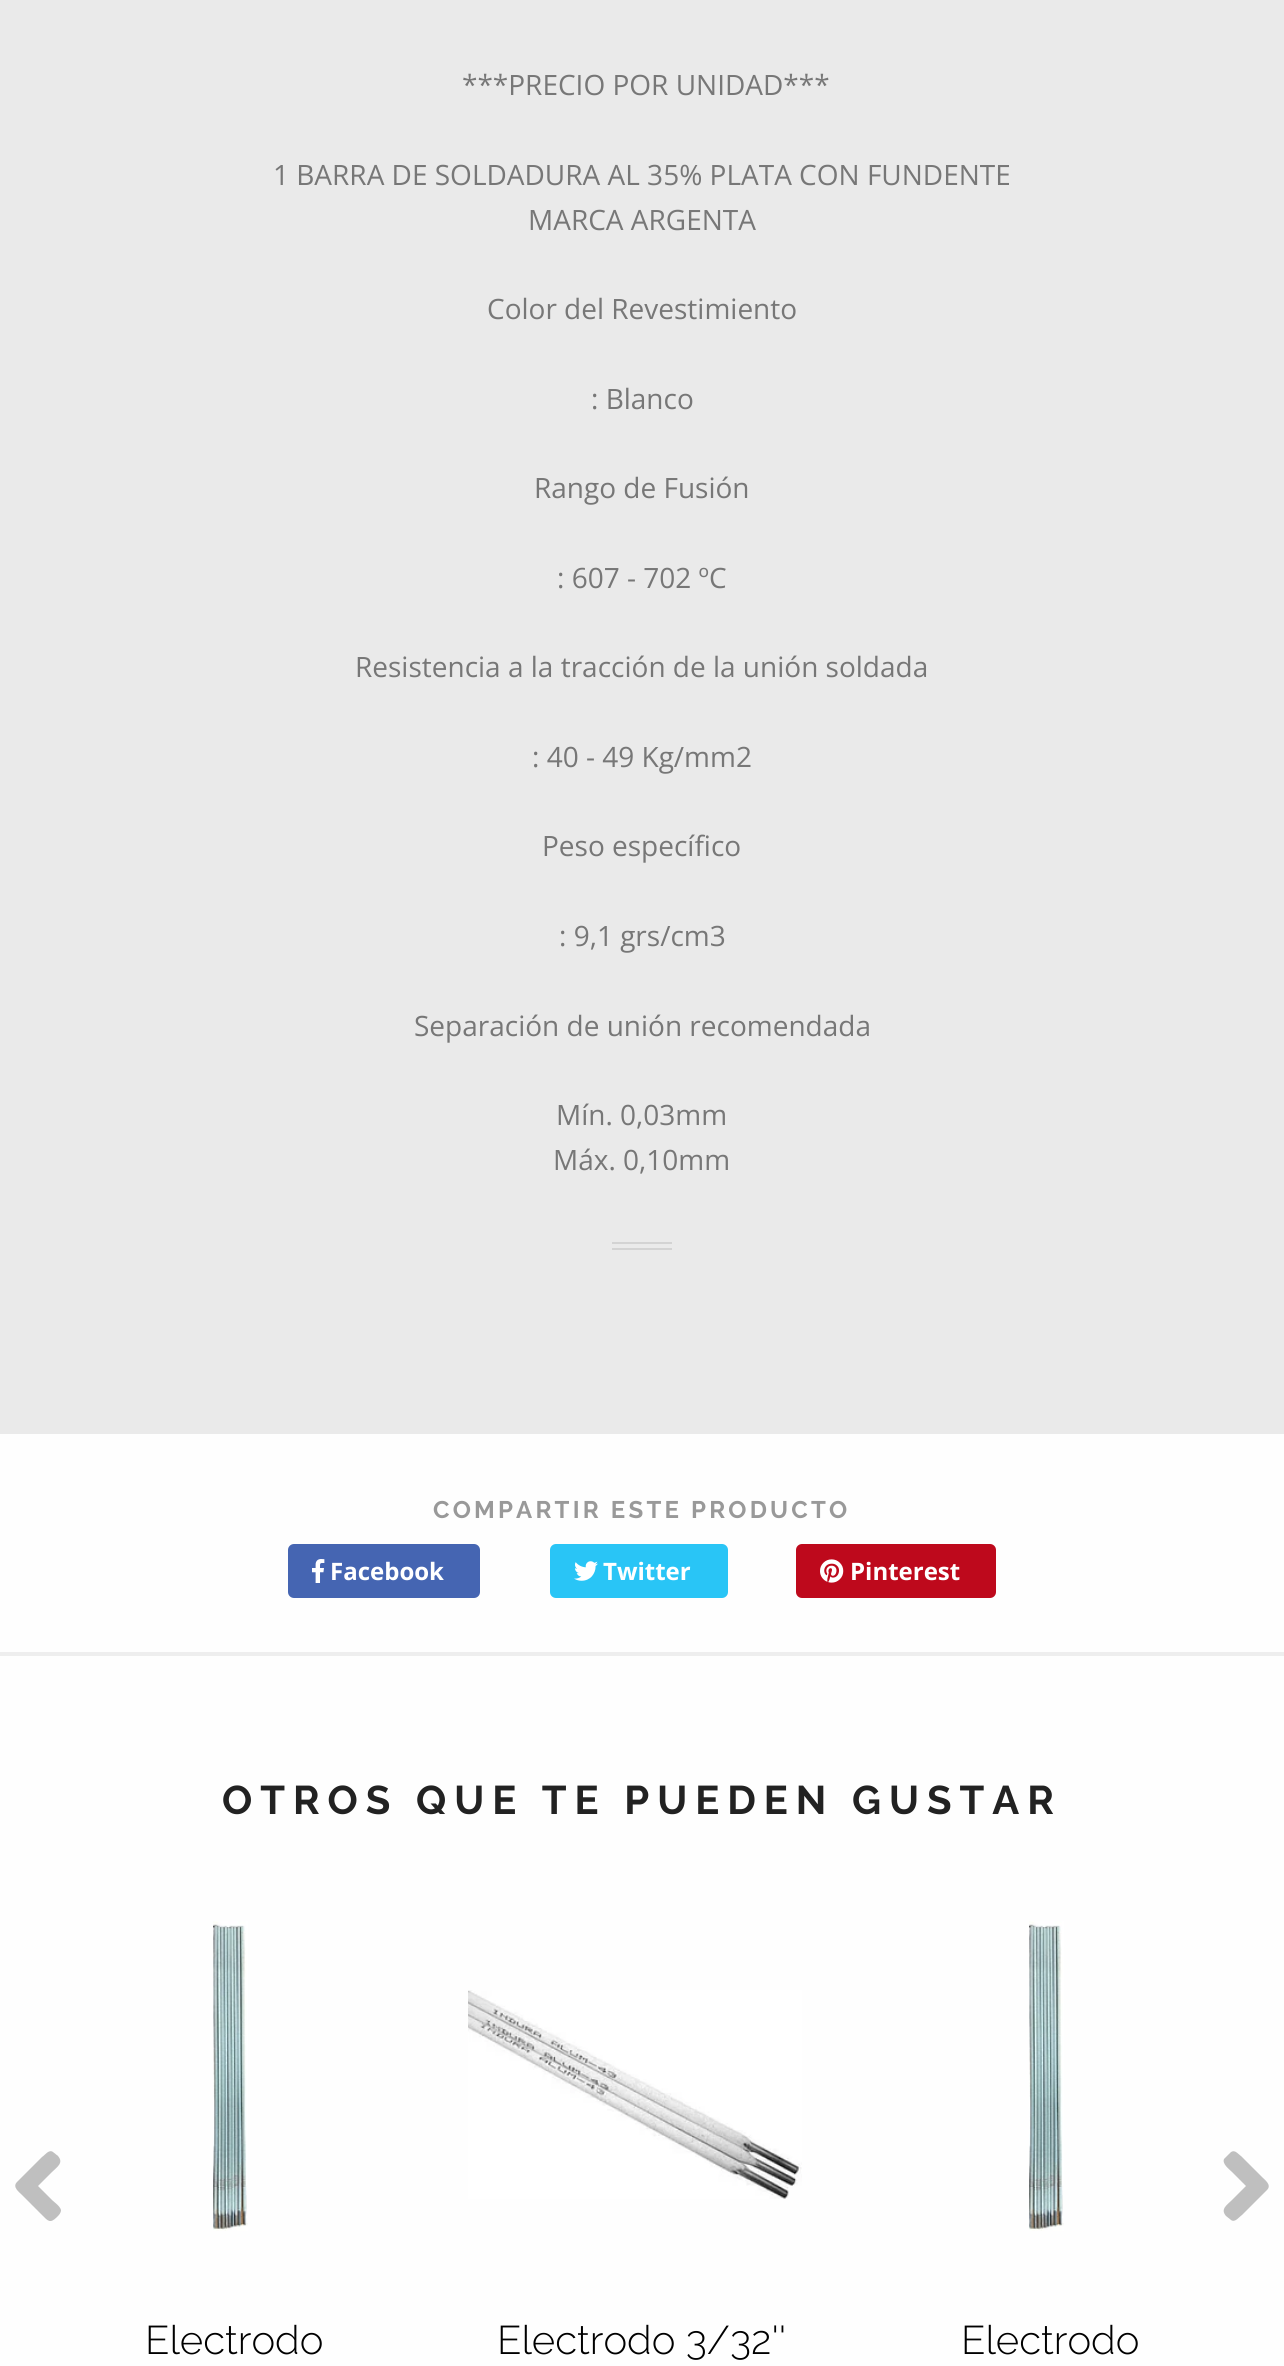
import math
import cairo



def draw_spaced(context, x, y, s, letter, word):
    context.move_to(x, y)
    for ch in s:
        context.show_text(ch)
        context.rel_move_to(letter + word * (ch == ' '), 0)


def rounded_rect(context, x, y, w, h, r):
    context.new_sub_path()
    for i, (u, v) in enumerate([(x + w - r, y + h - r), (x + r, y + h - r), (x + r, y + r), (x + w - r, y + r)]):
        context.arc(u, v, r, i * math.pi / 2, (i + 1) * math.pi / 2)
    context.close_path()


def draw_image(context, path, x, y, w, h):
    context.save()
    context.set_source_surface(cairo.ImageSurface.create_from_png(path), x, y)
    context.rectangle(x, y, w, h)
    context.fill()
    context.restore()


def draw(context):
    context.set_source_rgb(254 / 255, 254 / 255, 254 / 255)
    context.paint()
    context.set_source_rgb(234 / 255, 234 / 255, 234 / 255)
    context.rectangle(0, 0, 1284, 1434)
    context.fill()
    context.set_source_rgb(211 / 255, 211 / 255, 211 / 255)
    context.rectangle(612, 1242, 60, 2)
    context.fill()
    context.rectangle(612, 1248, 60, 2)
    context.fill()
    context.set_source_rgb(238 / 255, 238 / 255, 238 / 255)
    context.rectangle(0, 1652, 1284, 4)
    context.fill()
    context.set_source_rgb(69 / 255, 101 / 255, 178 / 255)
    rounded_rect(context, 288, 1544, 192, 54, 6)
    context.fill()
    draw_image(context, "images/1.png", 312, 1559, 13, 24)
    context.set_source_rgb(41 / 255, 197 / 255, 246 / 255)
    rounded_rect(context, 550, 1544, 178, 54, 6)
    context.fill()
    draw_image(context, "images/2.png", 574, 1561, 24, 20)
    context.set_source_rgb(190 / 255, 9 / 255, 28 / 255)
    rounded_rect(context, 796, 1544, 200, 54, 6)
    context.fill()
    draw_image(context, "images/3.png", 820, 1559, 24, 24)
    context.set_source_rgb(191 / 255, 191 / 255, 191 / 255)
    context.new_path()
    context.move_to(17, 2182)
    context.line_to(42, 2157)
    context.curve_to(45, 2155, 49, 2149, 53, 2152)
    context.line_to(58, 2156)
    context.curve_to(64, 2163, 57, 2167, 52, 2172)
    context.line_to(38, 2186)
    context.line_to(52, 2200)
    context.curve_to(54, 2202, 60, 2206, 61, 2210)
    context.curve_to(61, 2213, 59, 2215, 57, 2217)
    context.curve_to(50, 2224, 48, 2221, 42, 2215)
    context.line_to(22, 2195)
    context.curve_to(19, 2192, 12, 2187, 17, 2182)
    context.close_path()
    context.fill()
    context.new_path()
    context.move_to(1267, 2190)
    context.line_to(1242, 2215)
    context.curve_to(1239, 2217, 1235, 2223, 1231, 2220)
    context.line_to(1226, 2216)
    context.curve_to(1220, 2209, 1227, 2205, 1232, 2200)
    context.line_to(1246, 2186)
    context.line_to(1232, 2172)
    context.curve_to(1229, 2169, 1222, 2164, 1224, 2159)
    context.line_to(1229, 2154)
    context.curve_to(1234, 2148, 1237, 2153, 1242, 2157)
    context.line_to(1262, 2177)
    context.curve_to(1265, 2180, 1272, 2185, 1267, 2190)
    context.close_path()
    context.fill()
    draw_image(context, "images/4.png", 213, 1921, 35, 310)
    draw_image(context, "images/5.png", 468, 1990, 334, 209)
    draw_image(context, "images/4.png", 1029, 1921, 35, 310)
    context.select_font_face("Open Sans")
    context.set_font_size(28)
    context.set_source_rgb(119 / 255, 119 / 255, 119 / 255)
    context.move_to(462, 95)
    context.show_text("***PRECIO POR UNIDAD***")
    context.move_to(273, 185)
    context.show_text("1 BARRA DE SOLDADURA AL 35% PLATA CON FUNDENTE")
    context.move_to(528, 230)
    context.show_text("MARCA ARGENTA")
    context.move_to(487, 319)
    context.show_text("Color del Revestimiento")
    context.move_to(591, 409)
    context.show_text(": Blanco")
    context.move_to(534, 498)
    context.show_text("Rango de Fusión")
    context.move_to(557, 588)
    context.show_text(": 607 - 702 ºC")
    context.move_to(355, 677)
    context.show_text("Resistencia a la tracción de la unión soldada")
    context.move_to(532, 767)
    context.show_text(": 40 - 49 Kg/mm2")
    context.move_to(542, 856)
    context.show_text("Peso específico")
    context.move_to(559, 946)
    context.show_text(": 9,1 grs/cm3")
    context.move_to(414, 1036)
    context.show_text("Separación de unión recomendada")
    context.move_to(556, 1125)
    context.show_text("Mín. 0,03mm")
    context.move_to(553, 1170)
    context.show_text("Máx. 0,10mm")
    context.select_font_face("Raleway", cairo.FontSlant.NORMAL, cairo.FontWeight.BOLD)
    context.set_font_size(24)
    context.set_source_rgb(153 / 255, 153 / 255, 153 / 255)
    draw_spaced(context, 433, 1518, "COMPARTIR ESTE PRODUCTO", 3.2, 0)
    context.select_font_face("Open Sans", cairo.FontSlant.NORMAL, cairo.FontWeight.BOLD)
    context.set_source_rgb(1, 1, 1)
    context.move_to(330, 1580)
    context.show_text("Facebook")
    context.move_to(603, 1580)
    context.show_text("Twitter")
    context.move_to(850, 1580)
    context.show_text("Pinterest")
    context.select_font_face("Raleway", cairo.FontSlant.NORMAL, cairo.FontWeight.BOLD)
    context.set_font_size(40)
    context.set_source_rgb(34 / 255, 34 / 255, 34 / 255)
    draw_spaced(context, 222, 1814, "OTROS QUE TE PUEDEN GUSTAR", 8, 0)
    context.select_font_face("Raleway Light")
    context.set_source_rgb(0, 0, 0)
    context.move_to(145, 2354)
    context.show_text("Electrodo")
    context.move_to(497, 2354)
    context.show_text("Electrodo 3/32''")
    context.move_to(961, 2354)
    context.show_text("Electrodo")


surface = cairo.ImageSurface(cairo.Format.RGB24, 1284, 2366)
context = cairo.Context(surface)
options = cairo.FontOptions()
options.set_hint_metrics(cairo.HintMetrics.OFF)
options.set_hint_style(cairo.HintStyle.NONE)
context.set_font_options(options)
context.set_miter_limit(4)
draw(context)
surface.write_to_png("out.png")
